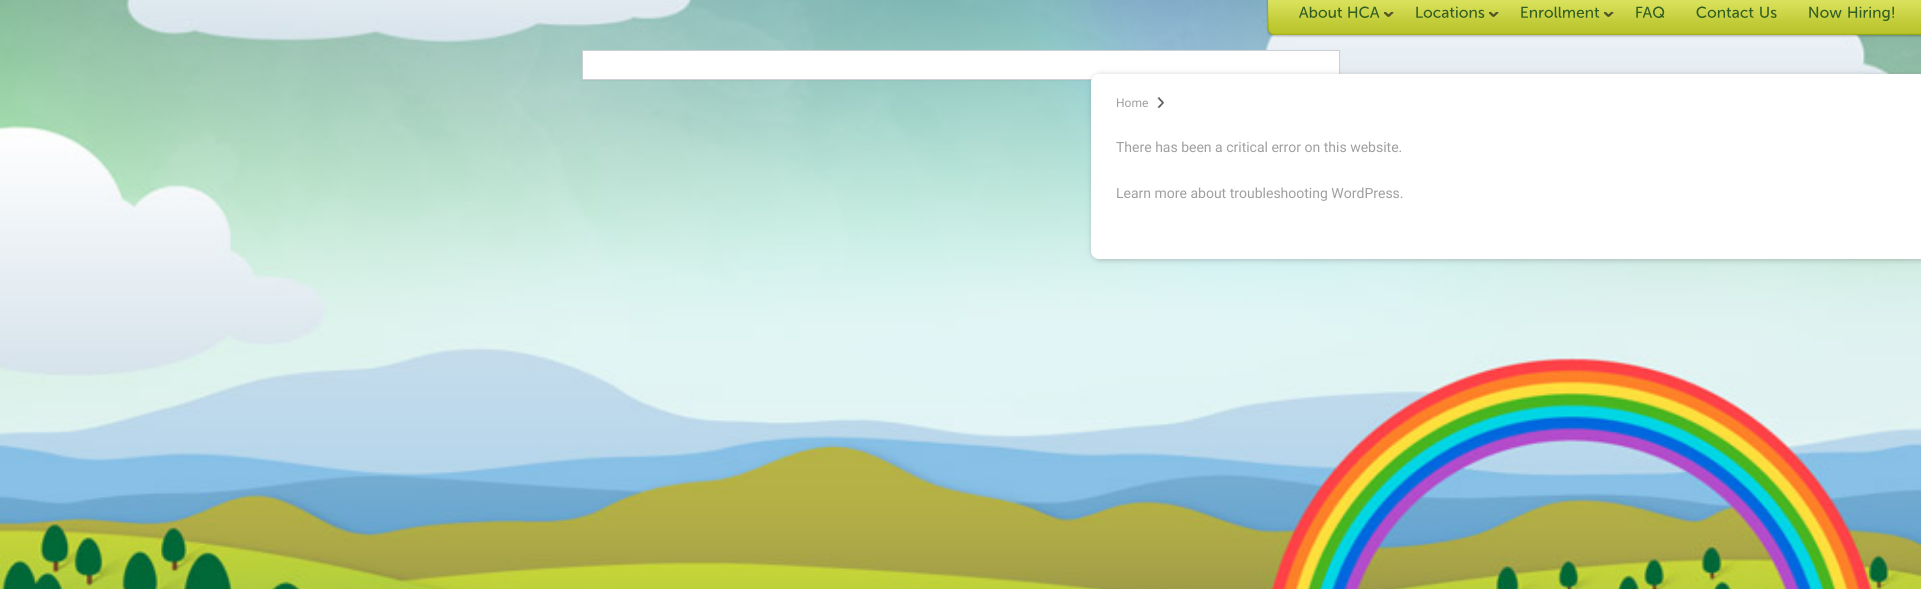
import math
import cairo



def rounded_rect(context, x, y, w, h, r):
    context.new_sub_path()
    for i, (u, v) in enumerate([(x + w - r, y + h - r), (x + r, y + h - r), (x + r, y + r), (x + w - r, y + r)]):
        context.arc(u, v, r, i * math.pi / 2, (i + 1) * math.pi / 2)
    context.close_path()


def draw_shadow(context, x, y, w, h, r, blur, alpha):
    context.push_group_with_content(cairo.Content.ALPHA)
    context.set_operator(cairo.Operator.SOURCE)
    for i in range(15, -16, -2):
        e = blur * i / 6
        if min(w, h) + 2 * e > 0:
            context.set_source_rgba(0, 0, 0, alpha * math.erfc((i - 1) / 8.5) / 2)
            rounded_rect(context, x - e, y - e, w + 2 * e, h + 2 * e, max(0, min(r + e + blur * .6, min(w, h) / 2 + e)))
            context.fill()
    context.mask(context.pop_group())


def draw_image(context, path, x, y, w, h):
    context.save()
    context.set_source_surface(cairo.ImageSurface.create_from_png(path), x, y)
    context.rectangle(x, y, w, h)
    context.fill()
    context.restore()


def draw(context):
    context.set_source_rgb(1, 1, 1)
    context.paint()
    draw_image(context, "images/1.png", 0, 0, 1921, 589)
    context.set_source_rgb(0, 0, 0)
    draw_shadow(context, 582, 51, 758, 30, 0, 0.5, 0.04)
    context.set_source_rgb(1, 1, 1)
    context.rectangle(582.5, 50.5, 757, 29)
    context.fill_preserve()
    context.set_source_rgb(204 / 255, 208 / 255, 212 / 255)
    context.set_line_width(1)
    context.stroke()
    draw_image(context, "images/2.png", 1266, 0, 18, 38)
    draw_image(context, "images/3.png", 1284, 0, 637, 38)
    draw_image(context, "images/4.png", 1299, 6, 43, 12)
    draw_image(context, "images/5.png", 1348, 6, 32, 12)
    draw_image(context, "images/6.png", 1384, 12, 10, 5)
    draw_image(context, "images/7.png", 1416, 6, 69, 12)
    draw_image(context, "images/6.png", 1489, 12, 10, 5)
    draw_image(context, "images/8.png", 1521, 6, 79, 12)
    draw_image(context, "images/6.png", 1604, 12, 10, 5)
    draw_image(context, "images/9.png", 1636, 6, 29, 12)
    draw_image(context, "images/10.png", 1696, 6, 58, 12)
    draw_image(context, "images/11.png", 1760, 6, 17, 12)
    draw_image(context, "images/12.png", 1809, 6, 33, 12)
    draw_image(context, "images/13.png", 1848, 6, 46, 15)
    context.set_source_rgb(102 / 255, 102 / 255, 102 / 255)
    draw_shadow(context, 1092, 75, 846, 185, 8, 3, 0.4)
    context.set_source_rgb(1, 1, 1)
    rounded_rect(context, 1091, 74, 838, 185, 8)
    context.fill()
    draw_image(context, "images/14.png", 1157, 97, 7, 11)
    context.select_font_face("Roboto")
    context.set_font_size(12)
    context.set_source_rgb(159 / 255, 159 / 255, 159 / 255)
    context.move_to(1116, 107)
    context.show_text("Home")
    context.set_font_size(14)
    context.move_to(1116, 152)
    context.show_text("There has been a critical error on this website.")
    context.move_to(1116, 198)
    context.show_text("Learn more about troubleshooting WordPress.")


surface = cairo.ImageSurface(cairo.Format.RGB24, 1921, 589)
context = cairo.Context(surface)
options = cairo.FontOptions()
options.set_hint_metrics(cairo.HintMetrics.OFF)
options.set_hint_style(cairo.HintStyle.NONE)
context.set_font_options(options)
context.set_miter_limit(4)
draw(context)
surface.write_to_png("out.png")
